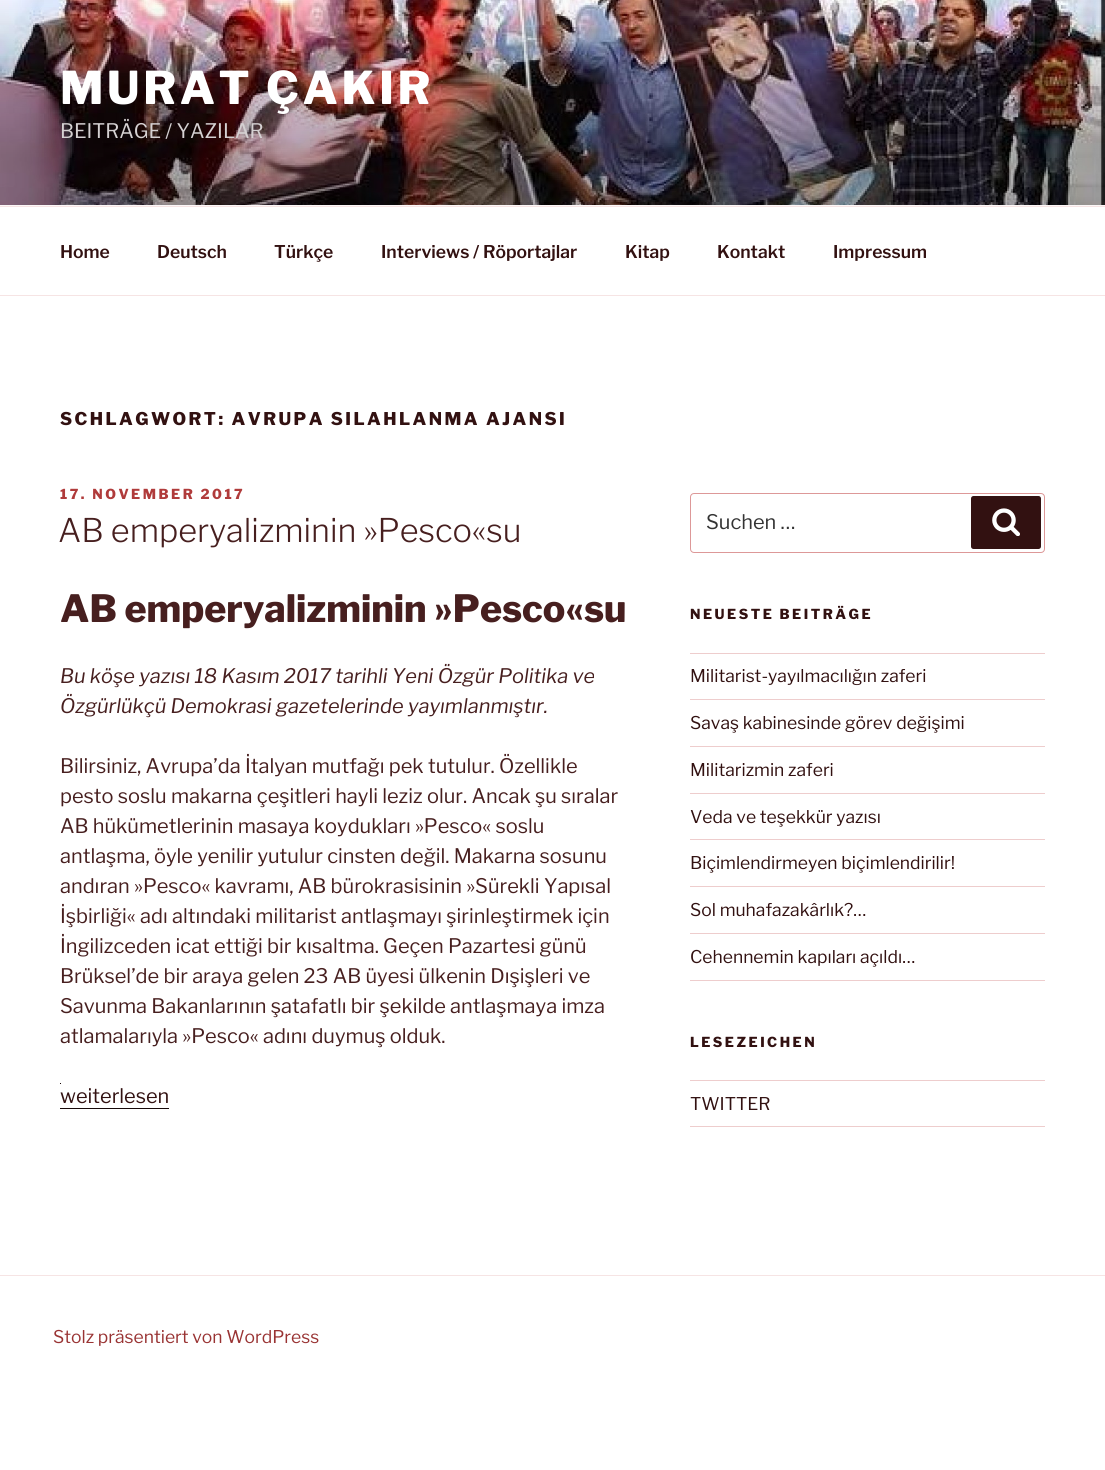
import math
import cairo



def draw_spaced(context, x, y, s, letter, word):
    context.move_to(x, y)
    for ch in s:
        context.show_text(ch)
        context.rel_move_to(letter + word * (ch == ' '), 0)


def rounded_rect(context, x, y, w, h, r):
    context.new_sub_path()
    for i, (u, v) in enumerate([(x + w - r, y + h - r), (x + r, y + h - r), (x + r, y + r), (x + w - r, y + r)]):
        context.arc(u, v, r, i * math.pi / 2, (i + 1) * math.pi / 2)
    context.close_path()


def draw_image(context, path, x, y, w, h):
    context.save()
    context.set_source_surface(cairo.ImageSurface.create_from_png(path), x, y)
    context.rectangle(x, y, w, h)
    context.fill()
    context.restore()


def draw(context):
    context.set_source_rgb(1, 1, 1)
    context.paint()
    context.set_source_rgb(252 / 255, 247 / 255, 247 / 255)
    context.rectangle(0, 205, 1105, 1)
    context.fill()
    draw_image(context, "images/1.png", 0, 0, 1105, 205)
    context.set_source_rgb(246 / 255, 228 / 255, 228 / 255)
    context.rectangle(0, 206, 1105, 1)
    context.fill()
    context.rectangle(0, 295, 1105, 1)
    context.fill()
    context.set_source_rgb(23 / 255, 8 / 255, 8 / 255)
    context.rectangle(60, 1083, 1, 1)
    context.fill()
    context.rectangle(60, 1108, 109, 1)
    context.fill()
    rounded_rect(context, 690.5, 493.5, 354, 59, 3.5)
    context.set_source_rgb(221 / 255, 152 / 255, 152 / 255)
    context.set_line_width(1)
    context.stroke()
    context.set_source_rgb(50 / 255, 17 / 255, 17 / 255)
    rounded_rect(context, 971, 496, 70, 53, 2.5)
    context.fill()
    draw_image(context, "images/2.png", 992, 508, 28, 28)
    context.set_source_rgb(238 / 255, 205 / 255, 205 / 255)
    context.rectangle(690, 653, 355, 1)
    context.fill()
    context.rectangle(690, 699, 355, 1)
    context.fill()
    context.rectangle(690, 746, 355, 1)
    context.fill()
    context.rectangle(690, 793, 355, 1)
    context.fill()
    context.rectangle(690, 839, 355, 1)
    context.fill()
    context.rectangle(690, 886, 355, 1)
    context.fill()
    context.rectangle(690, 933, 355, 1)
    context.fill()
    context.rectangle(690, 980, 355, 1)
    context.fill()
    context.rectangle(690, 1080, 355, 1)
    context.fill()
    context.rectangle(690, 1126, 355, 1)
    context.fill()
    context.set_source_rgb(246 / 255, 228 / 255, 228 / 255)
    context.rectangle(0, 1275, 1105, 1)
    context.fill()
    context.select_font_face("Libre Franklin ExtraBold")
    context.set_font_size(45)
    context.set_source_rgb(1, 1, 1)
    draw_spaced(context, 60, 104, "MURAT ÇAKIR", 3.6, 0)
    context.select_font_face("Libre Franklin")
    context.set_font_size(20)
    context.set_source_rgb(213 / 255, 209 / 255, 210 / 255)
    context.move_to(60, 138)
    context.show_text("BEITRÄGE / YAZILAR")
    context.select_font_face("Libre Franklin SemiBold")
    context.set_font_size(17.5)
    context.set_source_rgb(50 / 255, 17 / 255, 17 / 255)
    context.move_to(60, 258)
    context.show_text("Home")
    context.move_to(157, 258)
    context.show_text("Deutsch")
    context.move_to(274, 258)
    context.show_text("Türkçe")
    context.move_to(381, 258)
    context.show_text("Interviews / Röportajlar")
    context.move_to(625, 258)
    context.show_text("Kitap")
    context.move_to(717, 258)
    context.show_text("Kontakt")
    context.move_to(833, 258)
    context.show_text("Impressum")
    context.select_font_face("Libre Franklin ExtraBold")
    draw_spaced(context, 60, 425, "SCHLAGWORT: AVRUPA SILAHLANMA AJANSI", 2.45, 0)
    context.set_font_size(13.75)
    context.set_source_rgb(176 / 255, 59 / 255, 59 / 255)
    draw_spaced(context, 60, 499, "17. NOVEMBER 2017", 2.5, 0)
    context.select_font_face("Libre Franklin Light")
    context.set_font_size(32.5)
    context.set_source_rgb(71 / 255, 31 / 255, 31 / 255)
    context.move_to(58, 542)
    context.show_text("AB emperyalizminin »Pesco«su")
    context.select_font_face("Libre Franklin ExtraBold")
    context.set_font_size(37.5)
    context.move_to(60, 622)
    context.show_text("AB emperyalizminin »Pesco«su")
    context.select_font_face("Libre Franklin", cairo.FontSlant.ITALIC)
    context.set_font_size(20)
    context.move_to(60, 683)
    context.show_text("Bu köşe yazısı 18 Kasım 2017 tarihli Yeni Özgür Politika ve")
    context.move_to(60, 713)
    context.show_text("Özgürlükçü Demokrasi gazetelerinde yayımlanmıştır.")
    context.select_font_face("Libre Franklin")
    context.move_to(60, 773)
    context.show_text("Bilirsiniz, Avrupa’da İtalyan mutfağı pek tutulur. Özellikle")
    context.move_to(60, 803)
    context.show_text("pesto soslu makarna çeşitleri hayli leziz olur. Ancak şu sıralar")
    context.move_to(60, 833)
    context.show_text("AB hükümetlerinin masaya koydukları »Pesco« soslu")
    context.move_to(60, 863)
    context.show_text("antlaşma, öyle yenilir yutulur cinsten değil. Makarna sosunu")
    context.move_to(60, 893)
    context.show_text("andıran »Pesco« kavramı, AB bürokrasisinin »Sürekli Yapısal")
    context.move_to(60, 923)
    context.show_text("İşbirliği« adı altındaki militarist antlaşmayı şirinleştirmek için")
    context.move_to(60, 953)
    context.show_text("İngilizceden icat ettiği bir kısaltma. Geçen Pazartesi günü")
    context.move_to(60, 983)
    context.show_text("Brüksel’de bir araya gelen 23 AB üyesi ülkenin Dışişleri ve")
    context.move_to(60, 1013)
    context.show_text("Savunma Bakanlarının şatafatlı bir şekilde antlaşmaya imza")
    context.move_to(60, 1043)
    context.show_text("atlamalarıyla »Pesco« adını duymuş olduk.")
    context.set_source_rgb(50 / 255, 17 / 255, 17 / 255)
    context.move_to(60, 1103)
    context.show_text("weiterlesen")
    context.set_source_rgb(51 / 255, 51 / 255, 51 / 255)
    context.move_to(706, 529)
    context.show_text("Suchen …")
    context.select_font_face("Libre Franklin ExtraBold")
    context.set_font_size(13.75)
    context.set_source_rgb(50 / 255, 17 / 255, 17 / 255)
    draw_spaced(context, 690, 619, "NEUESTE BEITRÄGE", 2.5, 0)
    context.select_font_face("Libre Franklin")
    context.set_font_size(17.5)
    context.move_to(690, 682)
    context.show_text("Militarist-yayılmacılığın zaferi")
    context.move_to(690, 729)
    context.show_text("Savaş kabinesinde görev değişimi")
    context.move_to(690, 776)
    context.show_text("Militarizmin zaferi")
    context.move_to(690, 823)
    context.show_text("Veda ve teşekkür yazısı")
    context.move_to(690, 869)
    context.show_text("Biçimlendirmeyen biçimlendirilir!")
    context.move_to(690, 916)
    context.show_text("Sol muhafazakârlık?…")
    context.move_to(690, 963)
    context.show_text("Cehennemin kapıları açıldı…")
    context.select_font_face("Libre Franklin ExtraBold")
    context.set_font_size(13.75)
    draw_spaced(context, 690, 1047, "LESEZEICHEN", 2.5, 0)
    context.select_font_face("Libre Franklin")
    context.set_font_size(17.5)
    context.move_to(690, 1110)
    context.show_text("TWITTER")
    context.set_source_rgb(153 / 255, 51 / 255, 51 / 255)
    context.move_to(53, 1343)
    context.show_text("Stolz präsentiert von WordPress")


surface = cairo.ImageSurface(cairo.Format.RGB24, 1105, 1470)
context = cairo.Context(surface)
options = cairo.FontOptions()
options.set_hint_metrics(cairo.HintMetrics.OFF)
options.set_hint_style(cairo.HintStyle.NONE)
context.set_font_options(options)
context.set_miter_limit(4)
draw(context)
surface.write_to_png("out.png")
